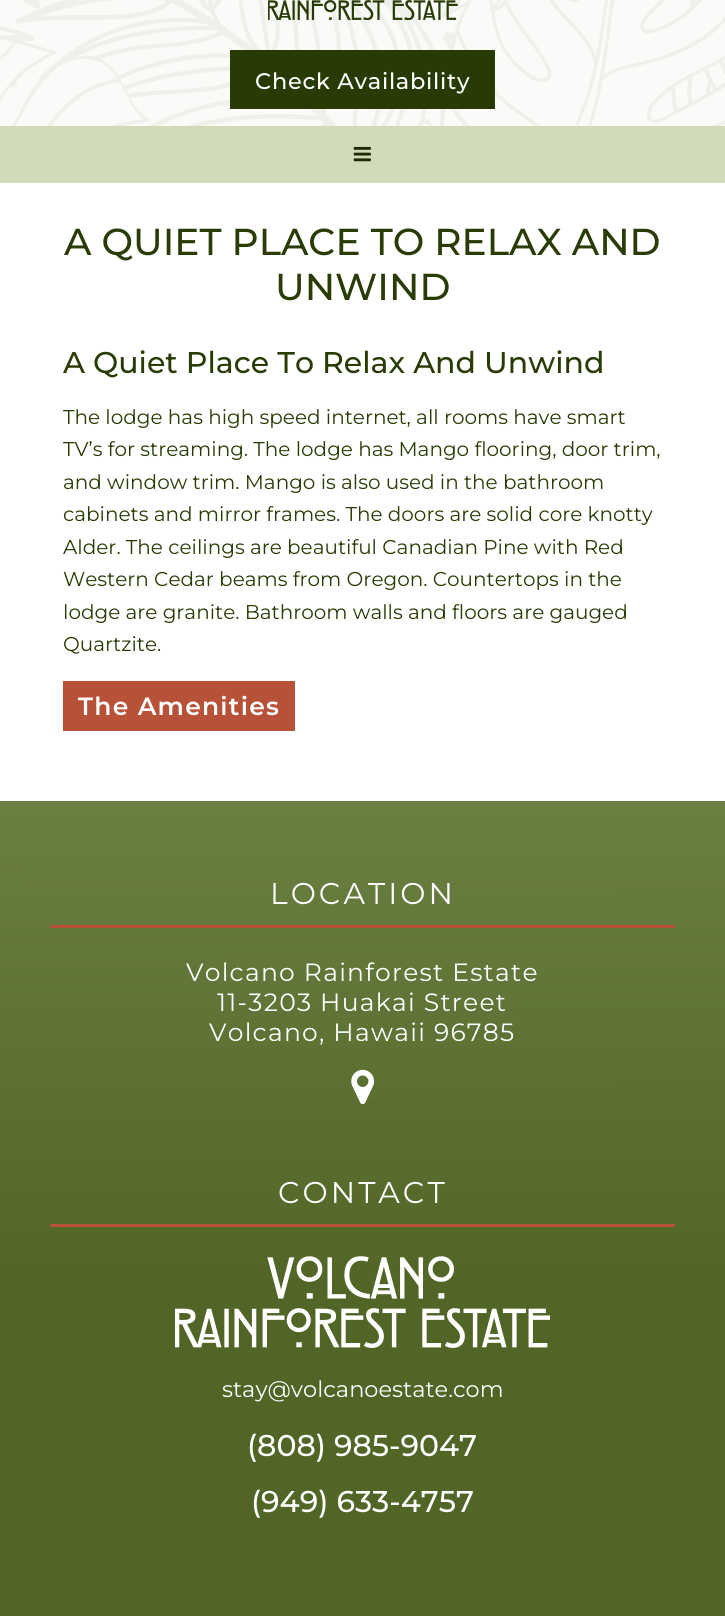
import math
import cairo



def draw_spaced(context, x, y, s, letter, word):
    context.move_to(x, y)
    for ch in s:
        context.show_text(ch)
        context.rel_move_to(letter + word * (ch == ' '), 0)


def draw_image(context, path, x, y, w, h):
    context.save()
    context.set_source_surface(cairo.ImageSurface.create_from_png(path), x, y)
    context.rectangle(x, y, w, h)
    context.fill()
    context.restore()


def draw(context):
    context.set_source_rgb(1, 1, 1)
    context.paint()
    context.set_source_rgb(250 / 255, 251 / 255, 248 / 255)
    context.rectangle(0, 0, 725, 126)
    context.fill()
    draw_image(context, "images/1.png", 0, 0, 725, 126)
    draw_image(context, "images/2.png", 268, 0, 190, 20)
    context.set_source_rgb(40 / 255, 59 / 255, 5 / 255)
    context.rectangle(230, 50, 265, 59)
    context.fill()
    context.set_source_rgb(207 / 255, 219 / 255, 185 / 255)
    context.rectangle(0, 126, 725, 57)
    context.fill()
    draw_image(context, "images/3.png", 353, 146, 18, 16)
    context.set_source_rgb(183 / 255, 81 / 255, 56 / 255)
    context.rectangle(63, 681, 232, 50)
    context.fill()
    gradient = cairo.LinearGradient(362, 801, 363, 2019)
    gradient.add_color_stop_rgba(0, 106 / 255, 128 / 255, 66 / 255, 1)
    gradient.add_color_stop_rgba(0.4, 81 / 255, 101 / 255, 38 / 255, 1)
    context.set_source(gradient)
    context.rectangle(0, 801, 725, 815)
    context.fill()
    context.set_source_rgb(183 / 255, 81 / 255, 56 / 255)
    context.rectangle(50, 925, 625, 3)
    context.fill()
    draw_image(context, "images/4.png", 351, 1069, 24, 36)
    context.rectangle(50, 1224, 625, 3)
    context.fill()
    draw_image(context, "images/5.png", 175, 1256, 375, 92)
    context.select_font_face("Montserrat Thin")
    context.set_font_size(22.5)
    context.set_source_rgb(1, 1, 1)
    draw_spaced(context, 255, 89, "Check Availability", 0.7, 0)
    context.set_font_size(37.5)
    context.set_source_rgb(41 / 255, 60 / 255, 5 / 255)
    context.move_to(64, 255)
    context.show_text("A QUIET PLACE TO RELAX AND")
    context.move_to(275, 300)
    context.show_text("UNWIND")
    context.set_font_size(30)
    context.move_to(63, 373)
    context.show_text("A Quiet Place To Relax And Unwind")
    context.select_font_face("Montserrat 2 Thin")
    context.set_font_size(20)
    context.move_to(63, 424)
    context.show_text("The lodge has high speed internet, all rooms have smart")
    context.move_to(63, 456)
    context.show_text("TV’s for streaming. The lodge has Mango flooring, door trim,")
    context.move_to(63, 489)
    context.show_text("and window trim. Mango is also used in the bathroom")
    context.move_to(63, 521)
    context.show_text("cabinets and mirror frames. The doors are solid core knotty")
    context.move_to(63, 554)
    context.show_text("Alder. The ceilings are beautiful Canadian Pine with Red")
    context.move_to(63, 586)
    context.show_text("Western Cedar beams from Oregon. Countertops in the")
    context.move_to(63, 619)
    context.show_text("lodge are granite. Bathroom walls and floors are gauged")
    context.move_to(63, 651)
    context.show_text("Quartzite.")
    context.select_font_face("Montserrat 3 Thin")
    context.set_font_size(25)
    context.set_source_rgb(1, 1, 1)
    draw_spaced(context, 78, 715, "The Amenities", 1.25, 0)
    context.select_font_face("Montserrat 2 Thin")
    context.set_font_size(30)
    draw_spaced(context, 270, 904, "LOCATION", 3, 0)
    context.set_font_size(25)
    draw_spaced(context, 186, 981, "Volcano Rainforest Estate", 1.25, 0)
    draw_spaced(context, 217, 1011, "11-3203 Huakai Street", 1.25, 0)
    draw_spaced(context, 209, 1041, "Volcano, Hawaii 96785", 1.25, 0)
    context.set_font_size(30)
    draw_spaced(context, 278, 1203, "CONTACT", 3, 0)
    context.set_font_size(22.5)
    context.move_to(222, 1397)
    context.show_text("stay@volcanoestate.com")
    context.select_font_face("Montserrat Thin")
    context.set_font_size(30)
    context.move_to(247, 1456)
    context.show_text("(808) 985-9047")
    context.move_to(251, 1512)
    context.show_text("(949) 633-4757")


surface = cairo.ImageSurface(cairo.Format.RGB24, 725, 1616)
context = cairo.Context(surface)
options = cairo.FontOptions()
options.set_hint_metrics(cairo.HintMetrics.OFF)
options.set_hint_style(cairo.HintStyle.NONE)
context.set_font_options(options)
context.set_miter_limit(4)
draw(context)
surface.write_to_png("out.png")
